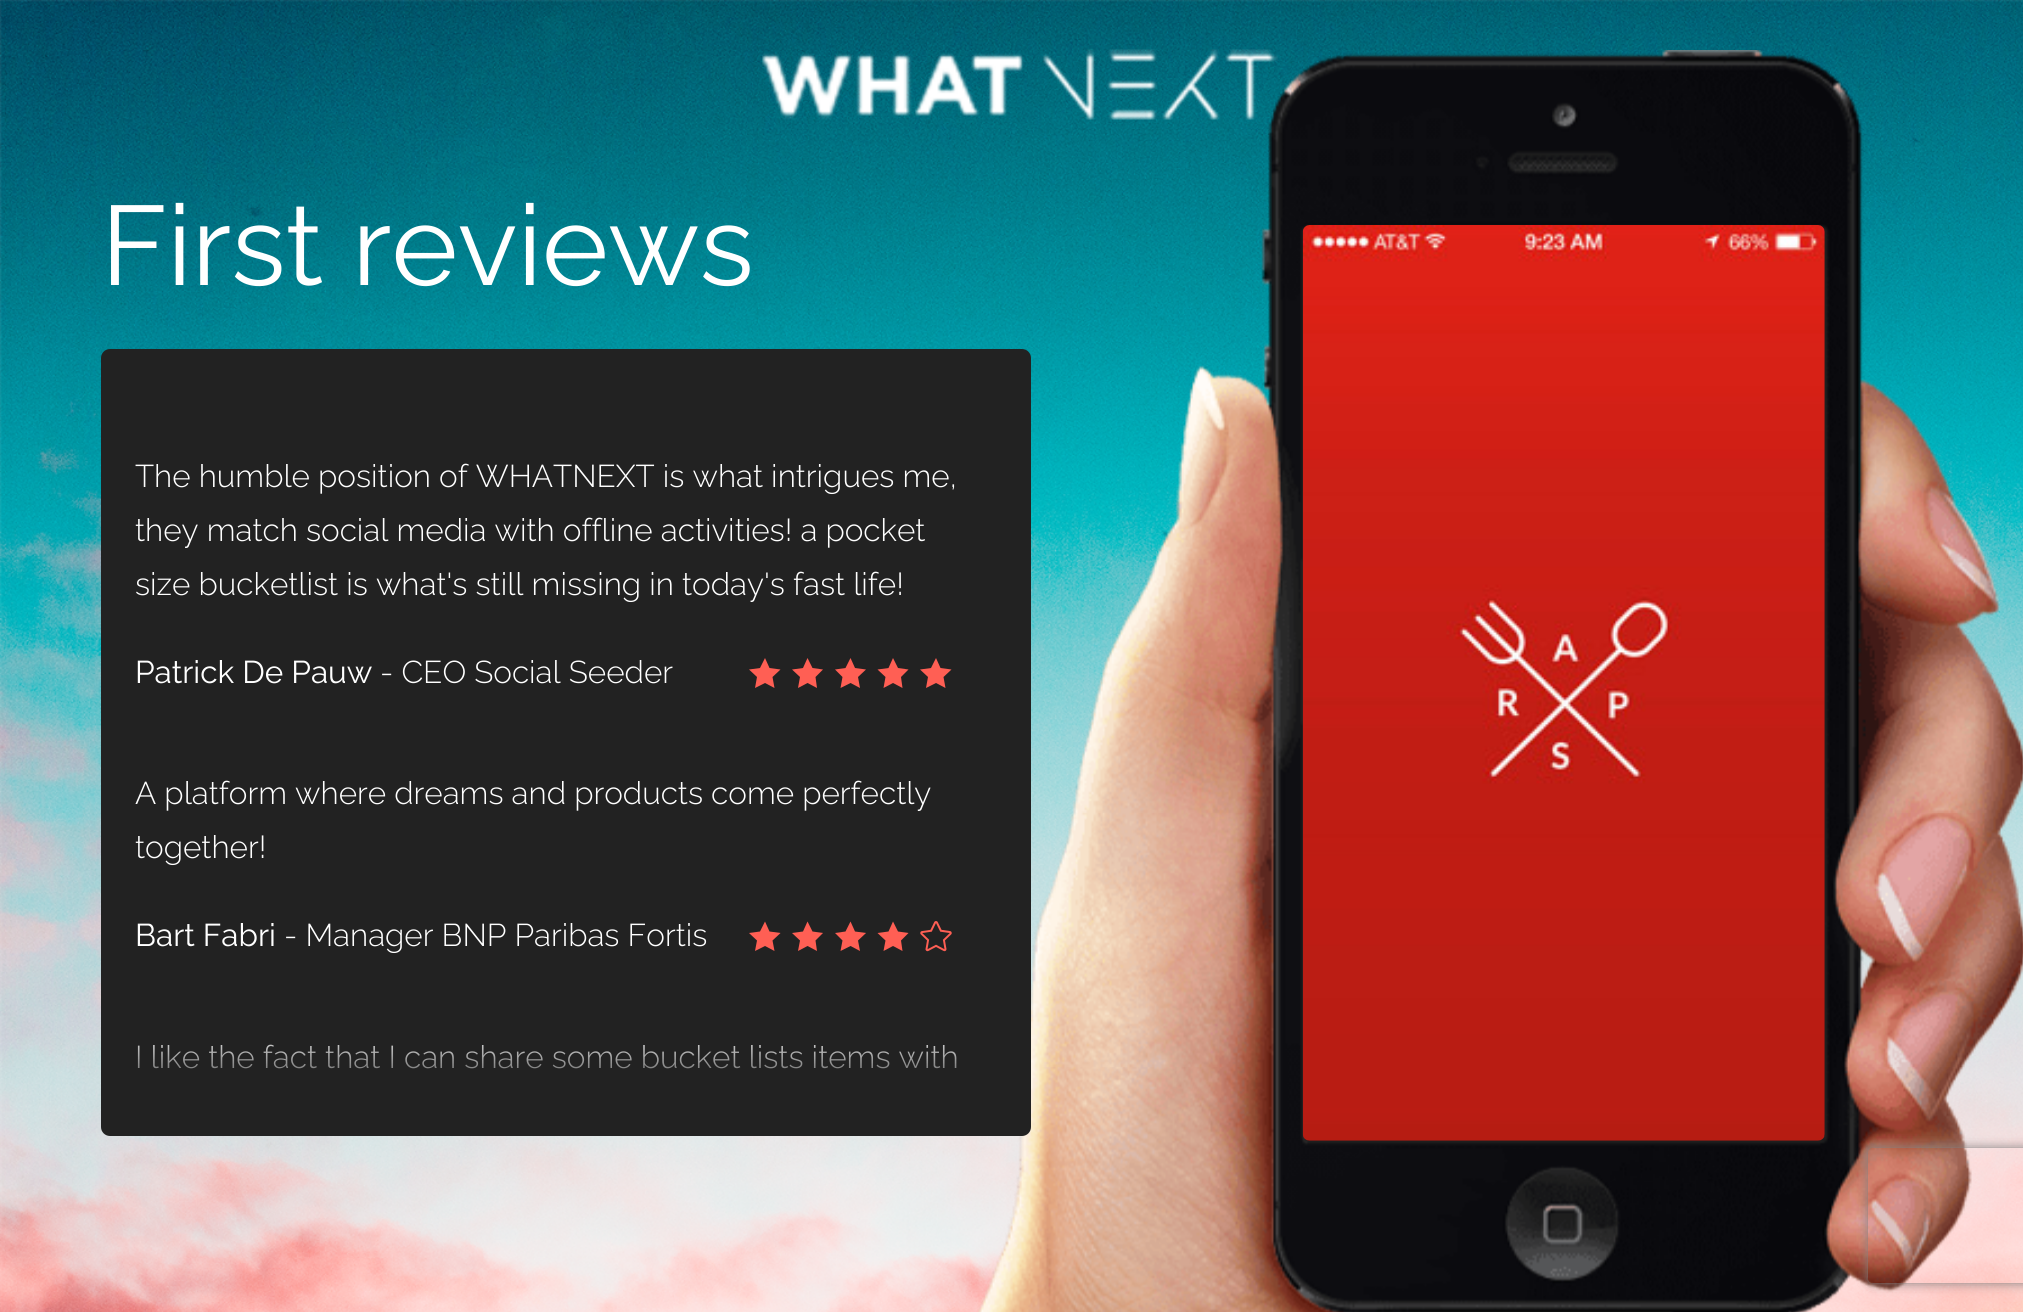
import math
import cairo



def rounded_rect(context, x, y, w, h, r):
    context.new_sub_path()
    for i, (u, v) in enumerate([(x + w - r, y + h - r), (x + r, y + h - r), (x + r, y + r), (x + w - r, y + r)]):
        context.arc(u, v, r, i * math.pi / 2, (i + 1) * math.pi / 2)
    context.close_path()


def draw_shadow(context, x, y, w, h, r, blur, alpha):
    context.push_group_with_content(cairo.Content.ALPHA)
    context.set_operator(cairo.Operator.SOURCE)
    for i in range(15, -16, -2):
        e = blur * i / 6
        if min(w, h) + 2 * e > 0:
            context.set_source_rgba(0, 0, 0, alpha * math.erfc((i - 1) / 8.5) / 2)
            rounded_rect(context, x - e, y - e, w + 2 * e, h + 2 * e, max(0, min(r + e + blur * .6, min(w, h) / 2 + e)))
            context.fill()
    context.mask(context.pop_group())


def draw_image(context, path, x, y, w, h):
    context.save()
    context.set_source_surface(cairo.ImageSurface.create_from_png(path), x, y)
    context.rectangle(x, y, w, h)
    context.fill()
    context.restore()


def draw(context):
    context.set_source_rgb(1, 1, 1)
    context.paint()
    draw_image(context, "images/1.png", 0, 0, 2023, 1312)
    draw_image(context, "images/4.png", 978, 50, 1045, 1262)
    draw_image(context, "images/2.png", 762, 49, 516, 71)
    context.set_source_rgb(34 / 255, 34 / 255, 34 / 255)
    rounded_rect(context, 101, 349, 930, 787, 9)
    context.fill()
    context.set_source_rgb(1, 95 / 255, 84 / 255)
    context.new_path()
    context.move_to(780.5, 669.5)
    context.line_to(769.5, 668)
    context.line_to(765, 658)
    context.line_to(760, 668)
    context.line_to(749, 669.5)
    context.line_to(757, 677)
    context.line_to(755, 688)
    context.line_to(765, 683)
    context.line_to(774.5, 688)
    context.line_to(772.5, 677)
    context.close_path()
    context.fill()
    context.new_path()
    context.move_to(823, 669.5)
    context.line_to(812.5, 668)
    context.line_to(807.5, 658)
    context.line_to(803, 668)
    context.line_to(792, 669.5)
    context.line_to(800, 677)
    context.line_to(798, 688)
    context.line_to(807.5, 683)
    context.line_to(817, 688)
    context.line_to(815.5, 677)
    context.close_path()
    context.fill()
    context.new_path()
    context.move_to(866, 669.5)
    context.line_to(855, 668)
    context.line_to(850.5, 658)
    context.line_to(845.5, 668)
    context.line_to(835, 669.5)
    context.line_to(842.5, 677)
    context.line_to(840.5, 688)
    context.line_to(850.5, 683)
    context.line_to(860, 688)
    context.line_to(858, 677)
    context.close_path()
    context.fill()
    context.new_path()
    context.move_to(908.5, 669.5)
    context.line_to(898, 668)
    context.line_to(893, 658)
    context.line_to(888.5, 668)
    context.line_to(877.5, 669.5)
    context.line_to(885.5, 677)
    context.line_to(883.5, 688)
    context.line_to(893, 683)
    context.line_to(902.5, 688)
    context.line_to(901, 677)
    context.close_path()
    context.fill()
    context.new_path()
    context.move_to(951.5, 669.5)
    context.line_to(940.5, 668)
    context.line_to(936, 658)
    context.line_to(931, 668)
    context.line_to(920, 669.5)
    context.line_to(928, 677)
    context.line_to(926, 688)
    context.line_to(936, 683)
    context.line_to(945.5, 688)
    context.line_to(943.5, 677)
    context.close_path()
    context.fill()
    context.new_path()
    context.move_to(780.5, 933)
    context.line_to(769.5, 931.5)
    context.line_to(765, 921.5)
    context.line_to(760, 931.5)
    context.line_to(749, 933)
    context.line_to(757, 940.5)
    context.line_to(755, 951)
    context.line_to(765, 946)
    context.line_to(774.5, 951)
    context.line_to(772.5, 940.5)
    context.close_path()
    context.fill()
    context.new_path()
    context.move_to(823, 933)
    context.line_to(812.5, 931.5)
    context.line_to(807.5, 921.5)
    context.line_to(803, 931.5)
    context.line_to(792, 933)
    context.line_to(800, 940.5)
    context.line_to(798, 951)
    context.line_to(807.5, 946)
    context.line_to(817, 951)
    context.line_to(815.5, 940.5)
    context.close_path()
    context.fill()
    context.new_path()
    context.move_to(866, 933)
    context.line_to(855, 931.5)
    context.line_to(850.5, 921.5)
    context.line_to(845.5, 931.5)
    context.line_to(835, 933)
    context.line_to(842.5, 940.5)
    context.line_to(840.5, 951)
    context.line_to(850.5, 946)
    context.line_to(860, 951)
    context.line_to(858, 940.5)
    context.close_path()
    context.fill()
    context.new_path()
    context.move_to(908.5, 933)
    context.line_to(898, 931.5)
    context.line_to(893, 921.5)
    context.line_to(888.5, 931.5)
    context.line_to(877.5, 933)
    context.line_to(885.5, 940.5)
    context.line_to(883.5, 951)
    context.line_to(893, 946)
    context.line_to(902.5, 951)
    context.line_to(901, 940.5)
    context.close_path()
    context.fill()
    draw_image(context, "images/3.png", 920, 921, 32, 31)
    draw_image(context, "images/5.png", 1302, 225, 523, 916)
    context.save()
    context.set_fill_rule(cairo.FillRule.EVEN_ODD)
    context.new_path()
    context.move_to(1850, 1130)
    context.line_to(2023, 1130)
    context.line_to(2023, 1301)
    context.line_to(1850, 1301)
    context.close_path()
    context.move_to(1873, 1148)
    context.line_to(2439, 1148)
    context.curve_to(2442, 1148, 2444, 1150, 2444, 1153)
    context.line_to(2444, 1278)
    context.curve_to(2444, 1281, 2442, 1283, 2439, 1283)
    context.line_to(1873, 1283)
    context.curve_to(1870, 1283, 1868, 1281, 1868, 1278)
    context.line_to(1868, 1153)
    context.curve_to(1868, 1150, 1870, 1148, 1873, 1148)
    context.close_path()
    context.clip()
    context.set_source_rgb(128 / 255, 128 / 255, 128 / 255)
    draw_shadow(context, 1868, 1148, 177, 135, 5, 5.5, 1)
    context.restore()
    context.select_font_face("Raleway")
    context.set_font_size(112.5)
    context.set_source_rgb(1, 1, 1)
    context.move_to(101, 285)
    context.show_text("First reviews")
    context.select_font_face("Raleway Light")
    context.set_font_size(31.5)
    context.move_to(135, 487)
    context.show_text("The humble position of WHATNEXT is what intrigues me,")
    context.move_to(135, 541)
    context.show_text("they match social media with offline activities! a pocket")
    context.move_to(135, 595)
    context.show_text("size bucketlist is what's still missing in today's fast life!")
    context.select_font_face("Raleway")
    context.move_to(135, 683)
    context.show_text("Patrick De Pauw")
    context.select_font_face("Raleway Light")
    context.move_to(380, 683)
    context.show_text("- CEO Social Seeder")
    context.move_to(135, 804)
    context.show_text("A platform where dreams and products come perfectly")
    context.move_to(135, 858)
    context.show_text("together!")
    context.select_font_face("Raleway")
    context.move_to(135, 946)
    context.show_text("Bart Fabri")
    context.select_font_face("Raleway Light")
    context.move_to(284, 946)
    context.show_text("- Manager BNP Paribas Fortis")
    context.move_to(135, 1068)
    context.show_text("I like the fact that I can share some bucket lists items with")
    gradient = cairo.LinearGradient(549, 1024, 549, 1103)
    gradient.add_color_stop_rgba(0, 34 / 255, 34 / 255, 34 / 255, 0)
    gradient.add_color_stop_rgba(1, 34 / 255, 34 / 255, 34 / 255, 1)
    context.set_source(gradient)
    context.rectangle(137, 1044, 820, 25)
    context.fill()


surface = cairo.ImageSurface(cairo.Format.RGB24, 2023, 1312)
context = cairo.Context(surface)
options = cairo.FontOptions()
options.set_hint_metrics(cairo.HintMetrics.OFF)
options.set_hint_style(cairo.HintStyle.NONE)
context.set_font_options(options)
context.set_miter_limit(4)
draw(context)
surface.write_to_png("out.png")
